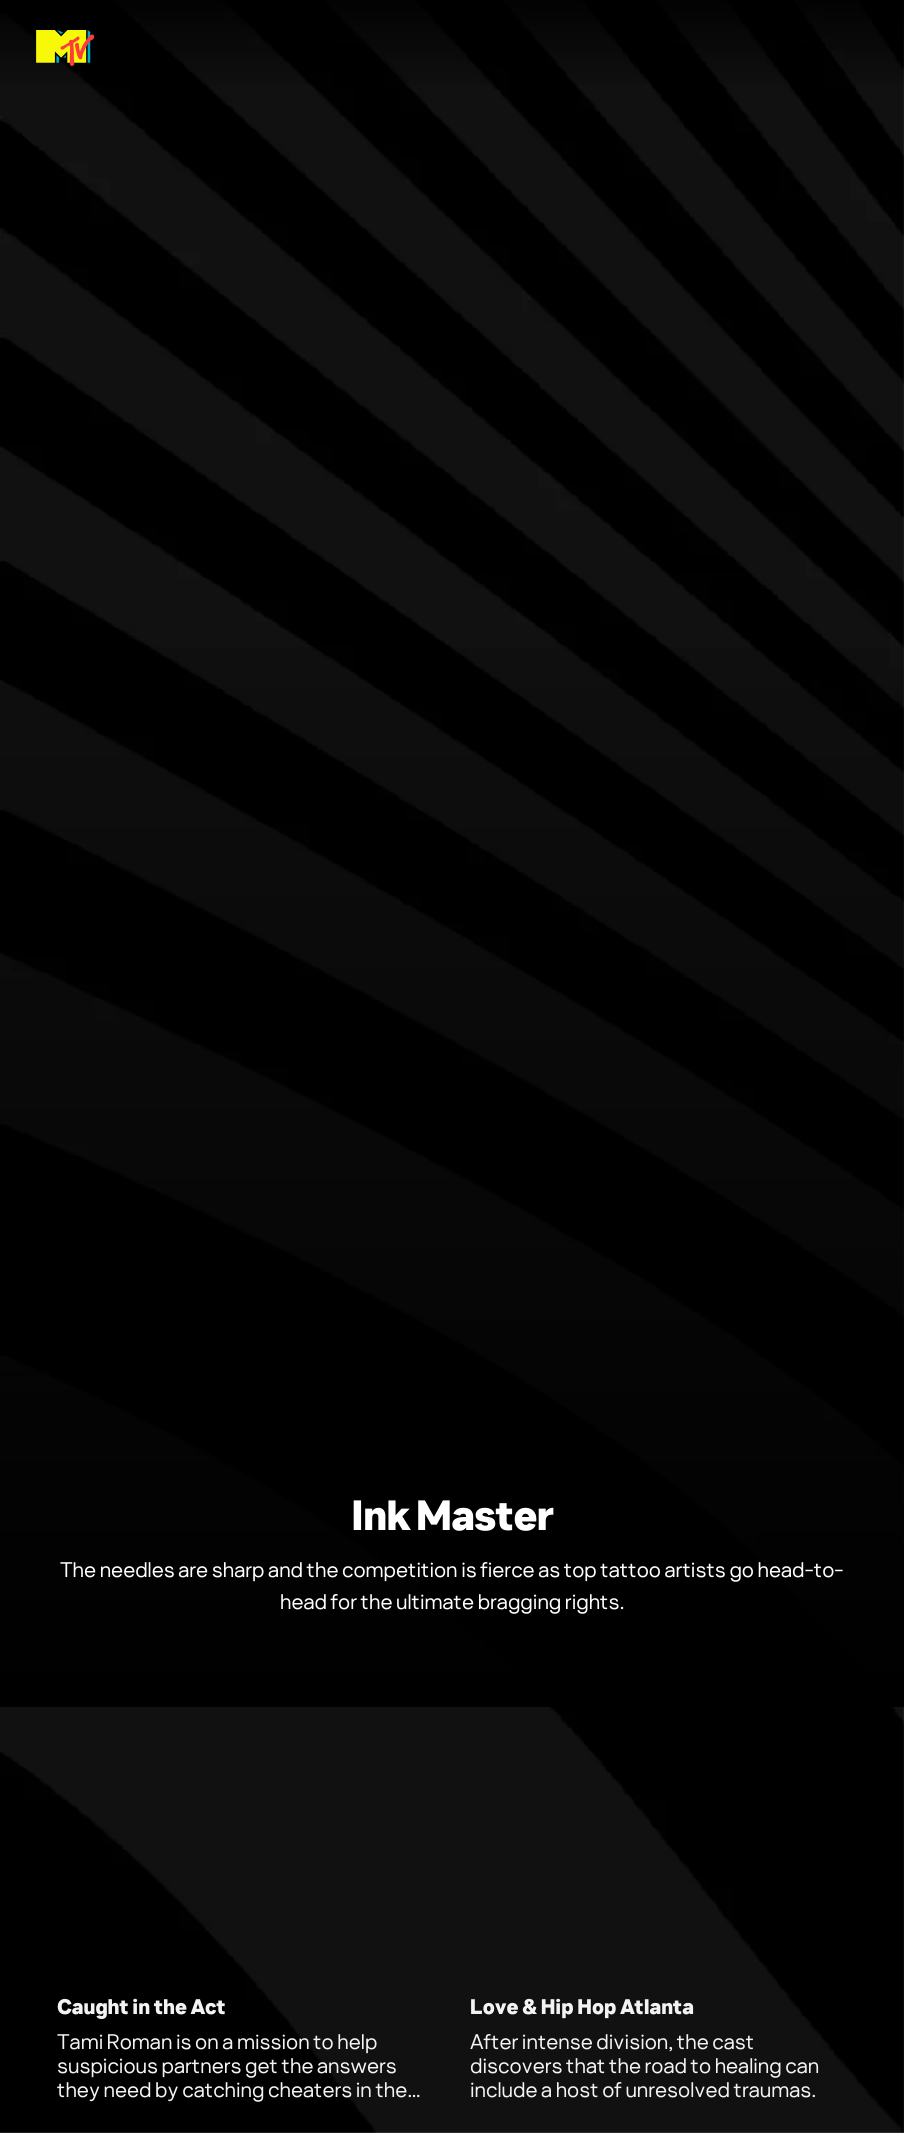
import math
import cairo



def draw_spaced(context, x, y, s, letter, word):
    context.move_to(x, y)
    for ch in s:
        context.show_text(ch)
        context.rel_move_to(letter + word * (ch == ' '), 0)


def draw_image(context, path, x, y, w, h):
    context.save()
    context.set_source_surface(cairo.ImageSurface.create_from_png(path), x, y)
    context.rectangle(x, y, w, h)
    context.fill()
    context.restore()


def draw(context):
    context.set_source_rgb(1, 1, 1)
    context.paint()
    draw_image(context, "images/1.png", 0, 0, 904, 2133)
    gradient = cairo.LinearGradient(452, 0, 452, 96)
    gradient.add_color_stop_rgba(0, 0, 0, 0, 0.85)
    gradient.add_color_stop_rgba(1, 0, 0, 0, 0)
    context.set_source(gradient)
    context.rectangle(0, 0, 904, 85)
    context.fill()
    draw_image(context, "images/2.png", 36, 30, 59, 36)
    gradient = cairo.LinearGradient(452, 511, 452, 1707)
    gradient.add_color_stop_rgba(0, 0, 0, 0, 0)
    gradient.add_color_stop_rgba(1, 0, 0, 0, 1)
    context.set_source(gradient)
    context.rectangle(0, 647, 904, 1060)
    context.fill()
    context.select_font_face("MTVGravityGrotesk", cairo.FontSlant.NORMAL, cairo.FontWeight.BOLD)
    context.set_font_size(42)
    context.set_source_rgb(1, 1, 1)
    draw_spaced(context, 351, 1530, "Ink Master", -0.5, 0)
    context.select_font_face("MTVGravityGrotesk Light")
    context.set_font_size(21)
    context.move_to(60, 1577)
    context.show_text("The needles are sharp and the competition is fierce as top tattoo artists go head-to-")
    context.move_to(280, 1609)
    context.show_text("head for the ultimate bragging rights.")
    context.select_font_face("MTVGravityGrotesk", cairo.FontSlant.NORMAL, cairo.FontWeight.BOLD)
    context.set_source_rgb(243 / 255, 243 / 255, 243 / 255)
    context.move_to(57, 2014)
    context.show_text("Caught in the Act")
    context.select_font_face("MTVGravityGrotesk Light")
    context.move_to(57, 2049)
    context.show_text("Tami Roman is on a mission to help")
    context.move_to(57, 2073)
    context.show_text("suspicious partners get the answers")
    context.move_to(57, 2097)
    context.show_text("they need by catching cheaters in the…")
    context.select_font_face("MTVGravityGrotesk", cairo.FontSlant.NORMAL, cairo.FontWeight.BOLD)
    context.move_to(470, 2014)
    context.show_text("Love & Hip Hop Atlanta")
    context.select_font_face("MTVGravityGrotesk Light")
    context.move_to(470, 2049)
    context.show_text("After intense division, the cast")
    context.move_to(470, 2073)
    context.show_text("discovers that the road to healing can")
    context.move_to(470, 2097)
    context.show_text("include a host of unresolved traumas.")


surface = cairo.ImageSurface(cairo.Format.RGB24, 904, 2133)
context = cairo.Context(surface)
options = cairo.FontOptions()
options.set_hint_metrics(cairo.HintMetrics.OFF)
options.set_hint_style(cairo.HintStyle.NONE)
context.set_font_options(options)
context.set_miter_limit(4)
draw(context)
surface.write_to_png("out.png")
